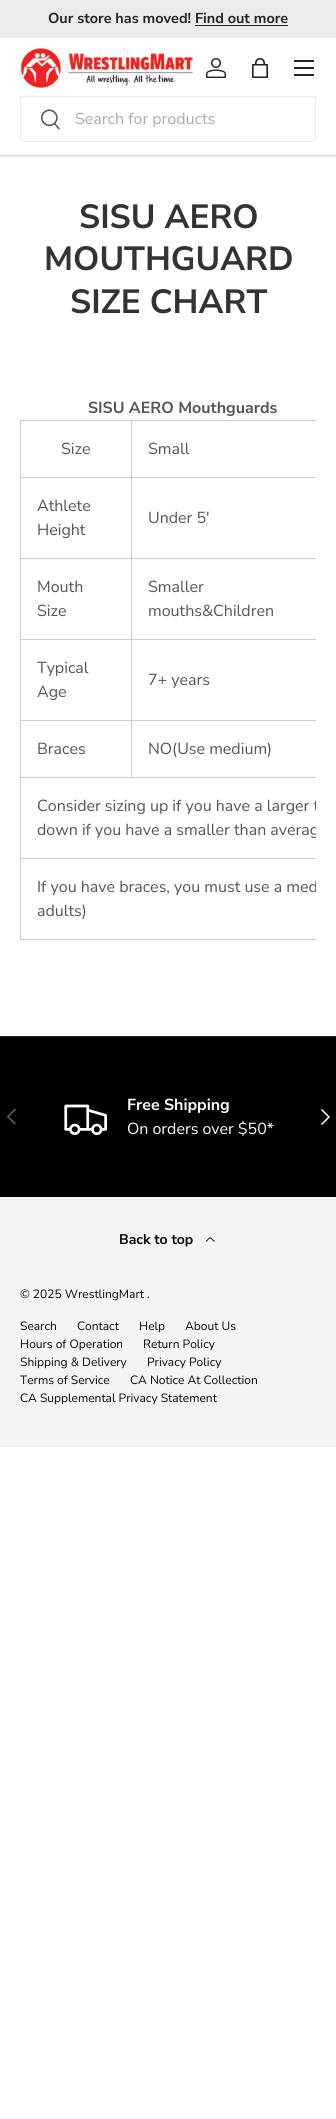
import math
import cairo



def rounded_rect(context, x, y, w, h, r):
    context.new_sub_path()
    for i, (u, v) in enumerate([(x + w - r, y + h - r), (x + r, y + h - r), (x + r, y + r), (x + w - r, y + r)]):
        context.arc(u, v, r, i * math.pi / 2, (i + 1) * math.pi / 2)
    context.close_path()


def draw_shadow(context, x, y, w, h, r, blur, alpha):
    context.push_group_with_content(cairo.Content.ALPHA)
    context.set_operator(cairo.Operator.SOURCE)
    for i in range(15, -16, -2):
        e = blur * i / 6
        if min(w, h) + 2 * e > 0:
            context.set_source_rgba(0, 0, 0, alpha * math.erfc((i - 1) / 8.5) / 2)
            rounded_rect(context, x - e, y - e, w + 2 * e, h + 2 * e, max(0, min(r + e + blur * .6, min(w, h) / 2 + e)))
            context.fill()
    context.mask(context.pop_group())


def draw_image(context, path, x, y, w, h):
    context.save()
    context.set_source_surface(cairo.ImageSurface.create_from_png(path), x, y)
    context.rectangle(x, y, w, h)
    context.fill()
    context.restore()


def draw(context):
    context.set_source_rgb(1, 1, 1)
    context.paint()
    context.save()
    context.rectangle(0, 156, 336, 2)
    context.clip()
    context.set_source_rgb(0, 0, 0)
    draw_shadow(context, -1, 37, 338, 120, 0, 1.5, 0.08)
    context.restore()
    context.set_source_rgb(235 / 255, 235 / 255, 235 / 255)
    context.rectangle(0, 0, 336, 38)
    context.fill()
    context.set_source_rgb(34 / 255, 34 / 255, 34 / 255)
    context.rectangle(195, 25, 93, 1)
    context.fill()
    draw_image(context, "images/1.png", 20, 48, 173, 40)
    draw_image(context, "images/2.png", 206, 58, 20, 20)
    draw_image(context, "images/3.png", 252, 58, 16, 20)
    context.rectangle(294, 60, 20, 2)
    context.fill()
    context.rectangle(294, 74, 20, 2)
    context.fill()
    context.rectangle(294, 67, 20, 2)
    context.fill()
    rounded_rect(context, 20.5, 96.5, 295, 45, 2.5)
    context.set_source_rgb(230 / 255, 230 / 255, 230 / 255)
    context.set_line_width(1)
    context.stroke()
    draw_image(context, "images/4.png", 41, 109, 19, 21)
    context.set_source_rgb(222 / 255, 222 / 255, 222 / 255)
    context.rectangle(0, 155, 336, 1)
    context.fill()
    context.set_source_rgb(204 / 255, 204 / 255, 204 / 255)
    context.rectangle(131, 420, 185, 1)
    context.fill()
    context.rectangle(131, 477, 185, 1)
    context.fill()
    context.rectangle(131, 558, 185, 1)
    context.fill()
    context.rectangle(131, 639, 185, 1)
    context.fill()
    context.rectangle(131, 720, 185, 1)
    context.fill()
    context.rectangle(20, 777, 296, 1)
    context.fill()
    context.rectangle(131, 720, 1, 58)
    context.fill()
    context.rectangle(20, 720, 112, 1)
    context.fill()
    context.rectangle(131, 639, 1, 82)
    context.fill()
    context.rectangle(20, 639, 112, 1)
    context.fill()
    context.rectangle(131, 558, 1, 82)
    context.fill()
    context.rectangle(20, 558, 112, 1)
    context.fill()
    context.rectangle(131, 477, 1, 82)
    context.fill()
    context.rectangle(20, 477, 112, 1)
    context.fill()
    context.rectangle(131, 420, 1, 58)
    context.fill()
    context.rectangle(20, 420, 112, 1)
    context.fill()
    context.rectangle(20, 858, 296, 1)
    context.fill()
    context.rectangle(20, 939, 296, 1)
    context.fill()
    context.rectangle(20, 858, 1, 82)
    context.fill()
    context.rectangle(20, 777, 1, 82)
    context.fill()
    context.rectangle(20, 720, 1, 58)
    context.fill()
    context.rectangle(20, 639, 1, 82)
    context.fill()
    context.rectangle(20, 558, 1, 82)
    context.fill()
    context.rectangle(20, 477, 1, 82)
    context.fill()
    context.rectangle(20, 420, 1, 58)
    context.fill()
    context.set_source_rgb(0, 0, 0)
    context.rectangle(0, 1037, 336, 160)
    context.fill()
    context.set_source_rgb(38 / 255, 38 / 255, 38 / 255)
    context.rectangle(0, 1036, 336, 1)
    context.fill()
    draw_image(context, "images/5.png", 64, 1104, 43, 31)
    draw_image(context, "images/6.png", 7, 1108, 9, 17)
    context.new_path()
    context.move_to(321.5, 1109.5)
    context.line_to(329, 1117)
    context.line_to(321.5, 1124.5)
    context.set_source_rgb(1, 1, 1)
    context.set_line_width(1.5)
    context.stroke()
    context.set_source_rgb(244 / 255, 244 / 255, 244 / 255)
    context.rectangle(0, 1197, 336, 250)
    context.fill()
    context.new_path()
    context.move_to(206, 1241.5)
    context.line_to(210, 1237.5)
    context.line_to(214.5, 1241.5)
    context.set_source_rgb(7 / 255, 7 / 255, 7 / 255)
    context.set_line_width(0.9)
    context.stroke()
    context.select_font_face("Nunito Sans", cairo.FontSlant.NORMAL, cairo.FontWeight.BOLD)
    context.set_font_size(14.4)
    context.set_source_rgb(34 / 255, 34 / 255, 34 / 255)
    context.move_to(48, 23)
    context.show_text("Our store has moved! Find out more")
    context.select_font_face("Nunito Sans")
    context.set_font_size(16)
    context.set_source_rgb(170 / 255, 170 / 255, 170 / 255)
    context.move_to(75, 124)
    context.show_text("Search for products")
    context.select_font_face("Nunito Sans", cairo.FontSlant.NORMAL, cairo.FontWeight.BOLD)
    context.set_font_size(33.5)
    context.set_source_rgb(51 / 255, 51 / 255, 51 / 255)
    context.move_to(79, 228)
    context.show_text("SISU AERO")
    context.move_to(44, 270)
    context.show_text("MOUTHGUARD")
    context.move_to(70, 313)
    context.show_text("SIZE CHART")
    context.set_font_size(16)
    context.set_source_rgb(85 / 255, 85 / 255, 85 / 255)
    context.move_to(88, 413)
    context.show_text("SISU AERO Mouthguards")
    context.select_font_face("Nunito Sans")
    context.move_to(61, 454)
    context.show_text("Size")
    context.move_to(148, 454)
    context.show_text("Small")
    context.move_to(37, 511)
    context.show_text("Athlete")
    context.move_to(37, 535)
    context.show_text("Height")
    context.move_to(148, 523)
    context.show_text("Under 5'")
    context.move_to(37, 592)
    context.show_text("Mouth")
    context.move_to(37, 616)
    context.show_text("Size")
    context.move_to(148, 592)
    context.show_text("Smaller")
    context.move_to(148, 616)
    context.show_text("mouths&Children")
    context.move_to(37, 673)
    context.show_text("Typical")
    context.move_to(37, 697)
    context.show_text("Age")
    context.move_to(148, 685)
    context.show_text("7+ years")
    context.move_to(37, 754)
    context.show_text("Braces")
    context.move_to(148, 754)
    context.show_text("NO(Use medium)")
    context.save()
    context.rectangle(20, 420, 296, 520)
    context.clip()
    context.move_to(37, 811)
    context.show_text("Consider sizing up if you have a larger t")
    context.move_to(37, 835)
    context.show_text("down if you have a smaller than averag")
    context.move_to(37, 892)
    context.show_text("If you have braces, you must use a med")
    context.restore()
    context.move_to(37, 916)
    context.show_text("adults)")
    context.select_font_face("Nunito Sans", cairo.FontSlant.NORMAL, cairo.FontWeight.BOLD)
    context.set_source_rgb(1, 1, 1)
    context.move_to(127, 1110)
    context.show_text("Free Shipping")
    context.select_font_face("Nunito Sans")
    context.move_to(127, 1134)
    context.show_text("On orders over $50*")
    context.select_font_face("Nunito Sans", cairo.FontSlant.NORMAL, cairo.FontWeight.BOLD)
    context.set_font_size(14)
    context.set_source_rgb(7 / 255, 7 / 255, 7 / 255)
    context.move_to(119, 1244)
    context.show_text("Back to top")
    context.select_font_face("Nunito Sans")
    context.set_font_size(12)
    context.move_to(20, 1298)
    context.show_text("© 2025 WrestlingMart .")
    context.move_to(20, 1330)
    context.show_text("Search")
    context.move_to(77, 1330)
    context.show_text("Contact")
    context.move_to(139, 1330)
    context.show_text("Help")
    context.move_to(185, 1330)
    context.show_text("About Us")
    context.move_to(20, 1348)
    context.show_text("Hours of Operation")
    context.move_to(143, 1348)
    context.show_text("Return Policy")
    context.move_to(20, 1366)
    context.show_text("Shipping & Delivery")
    context.move_to(147, 1366)
    context.show_text("Privacy Policy")
    context.move_to(20, 1384)
    context.show_text("Terms of Service")
    context.move_to(130, 1384)
    context.show_text("CA Notice At Collection")
    context.move_to(20, 1402)
    context.show_text("CA Supplemental Privacy Statement")


surface = cairo.ImageSurface(cairo.Format.RGB24, 336, 2119)
context = cairo.Context(surface)
options = cairo.FontOptions()
options.set_hint_metrics(cairo.HintMetrics.OFF)
options.set_hint_style(cairo.HintStyle.NONE)
context.set_font_options(options)
context.set_miter_limit(4)
draw(context)
surface.write_to_png("out.png")
